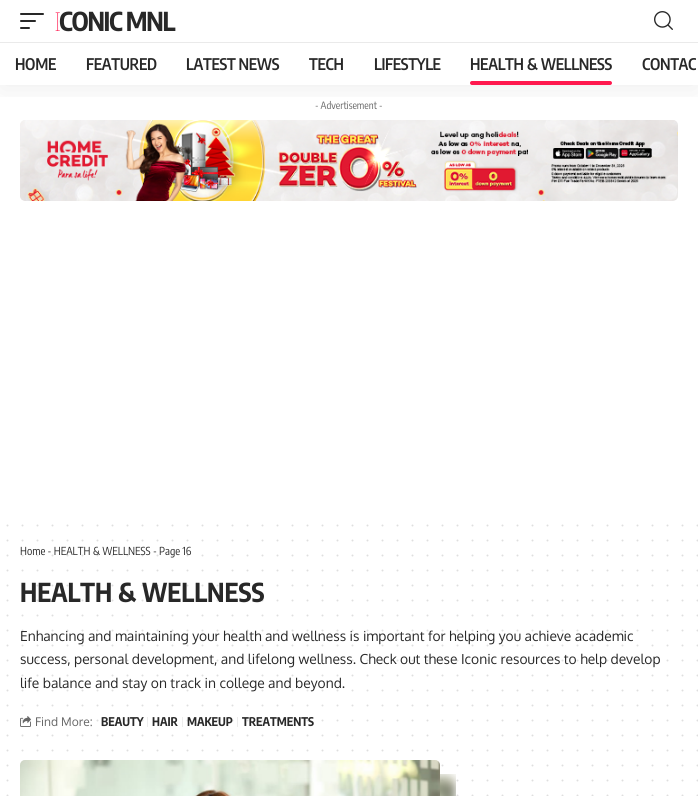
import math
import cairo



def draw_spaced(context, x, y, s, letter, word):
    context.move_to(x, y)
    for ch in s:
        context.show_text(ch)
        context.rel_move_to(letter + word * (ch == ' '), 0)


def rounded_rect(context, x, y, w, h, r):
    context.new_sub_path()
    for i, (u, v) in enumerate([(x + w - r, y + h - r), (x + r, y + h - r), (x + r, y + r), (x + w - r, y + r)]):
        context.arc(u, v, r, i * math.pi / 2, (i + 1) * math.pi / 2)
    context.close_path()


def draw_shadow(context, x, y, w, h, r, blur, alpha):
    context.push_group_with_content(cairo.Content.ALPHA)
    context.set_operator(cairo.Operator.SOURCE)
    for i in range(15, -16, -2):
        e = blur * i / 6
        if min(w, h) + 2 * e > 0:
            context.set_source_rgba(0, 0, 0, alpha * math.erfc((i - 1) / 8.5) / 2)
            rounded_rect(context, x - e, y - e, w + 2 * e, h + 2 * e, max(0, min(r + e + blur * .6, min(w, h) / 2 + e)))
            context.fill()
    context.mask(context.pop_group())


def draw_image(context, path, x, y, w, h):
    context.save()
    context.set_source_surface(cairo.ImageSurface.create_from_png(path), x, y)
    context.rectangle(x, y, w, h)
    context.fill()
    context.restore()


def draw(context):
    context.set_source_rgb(1, 1, 1)
    context.paint()
    draw_image(context, "images/2.png", 20, 120, 658, 81)
    context.save()
    context.rectangle(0, 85, 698, 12)
    context.clip()
    context.set_source_rgb(0, 0, 0)
    draw_shadow(context, 0, 4, 698, 85, 0, 15, 0.07)
    context.restore()
    context.set_source_rgb(40 / 255, 40 / 255, 40 / 255)
    rounded_rect(context, 20, 13, 24, 2, 1)
    context.fill()
    rounded_rect(context, 20, 20, 16, 2, 1)
    context.fill()
    rounded_rect(context, 20, 27, 10, 2, 1)
    context.fill()
    draw_image(context, "images/1.png", 654, 11, 19, 19)
    context.set_source_rgb(234 / 255, 234 / 255, 234 / 255)
    context.rectangle(0, 42, 698, 1)
    context.fill()
    context.set_source_rgb(1, 24 / 255, 78 / 255)
    rounded_rect(context, 470, 81, 142, 4, 2)
    context.fill()
    context.new_path()
    context.move_to(7.5, 525.5)
    context.line_to(697.7, 525.5)
    context.set_source_rgb(223 / 255, 223 / 255, 223 / 255)
    context.set_line_cap(cairo.LineCap.ROUND)
    context.set_dash([0, 15])
    context.stroke()
    context.new_path()
    context.move_to(7.5, 540.5)
    context.line_to(697.7, 540.5)
    context.stroke()
    context.new_path()
    context.move_to(7.5, 555.5)
    context.line_to(697.7, 555.5)
    context.stroke()
    context.new_path()
    context.move_to(7.5, 570.5)
    context.line_to(697.7, 570.5)
    context.stroke()
    context.new_path()
    context.move_to(7.5, 585.5)
    context.line_to(697.7, 585.5)
    context.stroke()
    context.new_path()
    context.move_to(7.5, 600.5)
    context.line_to(697.7, 600.5)
    context.stroke()
    context.new_path()
    context.move_to(7.5, 615.5)
    context.line_to(697.7, 615.5)
    context.stroke()
    context.new_path()
    context.move_to(7.5, 630.5)
    context.line_to(697.7, 630.5)
    context.stroke()
    context.new_path()
    context.move_to(7.5, 645.5)
    context.line_to(697.7, 645.5)
    context.stroke()
    context.new_path()
    context.move_to(7.5, 660.5)
    context.line_to(697.7, 660.5)
    context.stroke()
    context.new_path()
    context.move_to(7.5, 675.5)
    context.line_to(697.7, 675.5)
    context.stroke()
    context.new_path()
    context.move_to(7.5, 690.5)
    context.line_to(697.7, 690.5)
    context.stroke()
    context.new_path()
    context.move_to(7.5, 705.5)
    context.line_to(697.7, 705.5)
    context.stroke()
    context.new_path()
    context.move_to(7.5, 720.5)
    context.line_to(697.7, 720.5)
    context.stroke()
    context.new_path()
    context.move_to(7.5, 735.5)
    context.line_to(697.7, 735.5)
    context.stroke()
    context.new_path()
    context.move_to(7.5, 750.5)
    context.line_to(697.7, 750.5)
    context.stroke()
    context.new_path()
    context.move_to(7.5, 765.5)
    context.line_to(697.7, 765.5)
    context.stroke()
    context.new_path()
    context.move_to(7.5, 780.5)
    context.line_to(697.7, 780.5)
    context.stroke()
    context.new_path()
    context.move_to(7.5, 795.5)
    context.line_to(697.7, 795.5)
    context.stroke()
    draw_image(context, "images/3.png", 20, 716, 11, 11)
    context.set_source_rgb(237 / 255, 237 / 255, 237 / 255)
    context.rectangle(147, 717, 1, 10)
    context.fill()
    context.rectangle(182, 717, 1, 10)
    context.fill()
    context.rectangle(237, 717, 1, 10)
    context.fill()
    draw_image(context, "images/4.png", 20, 760, 420, 36)
    draw_image(context, "images/5.png", 440, 774, 16, 22)
    context.select_font_face("Noto Sans Thin")
    context.set_font_size(26)
    context.set_source_rgb(1, 24 / 255, 78 / 255)
    draw_spaced(context, 54, 31, "I", -1.25, 0)
    context.select_font_face("Encode Sans Condensed", cairo.FontSlant.NORMAL, cairo.FontWeight.BOLD)
    context.set_source_rgb(40 / 255, 40 / 255, 40 / 255)
    draw_spaced(context, 59, 31, "CONIC MNL", -1.25, 0)
    context.select_font_face("Encode Sans Condensed SemiBold")
    context.set_font_size(16)
    draw_spaced(context, 15, 70, "HOME", -0.3, 0)
    draw_spaced(context, 86, 70, "FEATURED", -0.3, 0)
    draw_spaced(context, 186, 70, "LATEST NEWS", -0.3, 0)
    draw_spaced(context, 309, 70, "TECH", -0.3, 0)
    draw_spaced(context, 374, 70, "LIFESTYLE", -0.3, 0)
    draw_spaced(context, 470, 70, "HEALTH & WELLNESS", -0.3, 0)
    draw_spaced(context, 642, 70, "CONTAC", -0.3, 0)
    context.select_font_face("Encode Sans Condensed")
    context.set_font_size(10)
    context.set_source_rgb(102 / 255, 102 / 255, 102 / 255)
    context.move_to(315, 109)
    context.show_text("- Advertisement -")
    context.set_font_size(11)
    context.set_source_rgb(40 / 255, 40 / 255, 40 / 255)
    context.move_to(20, 555)
    context.show_text("Home - HEALTH & WELLNESS - Page 16")
    context.select_font_face("Encode Sans Condensed", cairo.FontSlant.NORMAL, cairo.FontWeight.BOLD)
    context.set_font_size(26)
    context.move_to(20, 602)
    context.show_text("HEALTH & WELLNESS")
    context.select_font_face("Oxygen")
    context.set_font_size(13.8)
    context.move_to(20, 641)
    context.show_text("Enhancing and maintaining your health and wellness is important for helping you achieve academic")
    context.move_to(20, 664)
    context.show_text("success, personal development, and lifelong wellness. Check out these Iconic resources to help develop")
    context.move_to(20, 688)
    context.show_text("life balance and stay on track in college and beyond.")
    context.set_font_size(12)
    context.set_source_rgb(102 / 255, 102 / 255, 102 / 255)
    context.move_to(35, 726)
    context.show_text("Find More:")
    context.select_font_face("Encode Sans Condensed", cairo.FontSlant.NORMAL, cairo.FontWeight.BOLD)
    context.set_source_rgb(40 / 255, 40 / 255, 40 / 255)
    context.move_to(101, 726)
    context.show_text("BEAUTY")
    context.move_to(152, 726)
    context.show_text("HAIR")
    context.move_to(187, 726)
    context.show_text("MAKEUP")
    context.move_to(242, 726)
    context.show_text("TREATMENTS")


surface = cairo.ImageSurface(cairo.Format.RGB24, 698, 796)
context = cairo.Context(surface)
options = cairo.FontOptions()
options.set_hint_metrics(cairo.HintMetrics.OFF)
options.set_hint_style(cairo.HintStyle.NONE)
context.set_font_options(options)
context.set_miter_limit(4)
draw(context)
surface.write_to_png("out.png")
